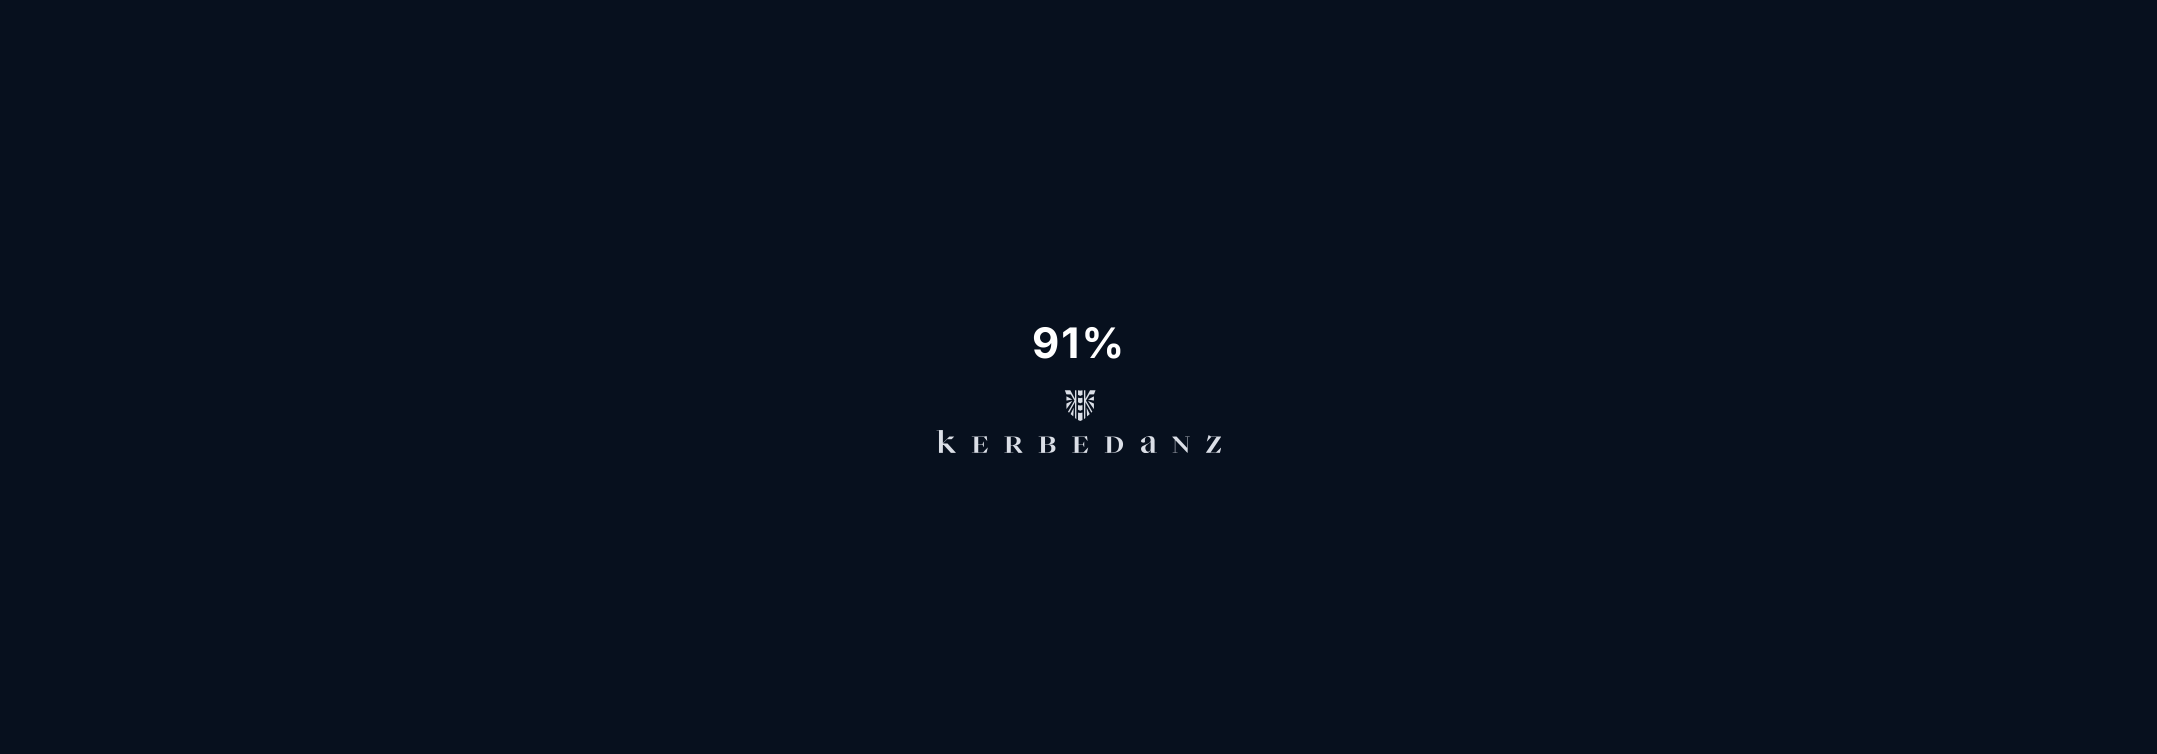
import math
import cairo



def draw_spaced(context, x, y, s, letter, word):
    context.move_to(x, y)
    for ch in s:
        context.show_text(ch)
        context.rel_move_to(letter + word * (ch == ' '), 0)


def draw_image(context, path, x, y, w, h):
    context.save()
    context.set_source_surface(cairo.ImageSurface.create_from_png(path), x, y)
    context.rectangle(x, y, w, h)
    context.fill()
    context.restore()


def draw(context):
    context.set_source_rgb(7 / 255, 16 / 255, 30 / 255)
    context.paint()
    draw_image(context, "images/1.png", 936, 390, 285, 63)
    context.select_font_face("Inter", cairo.FontSlant.NORMAL, cairo.FontWeight.BOLD)
    context.set_font_size(42)
    context.set_source_rgb(1, 1, 1)
    draw_spaced(context, 1032, 358, "91%", 2, 0)


surface = cairo.ImageSurface(cairo.Format.RGB24, 2157, 754)
context = cairo.Context(surface)
options = cairo.FontOptions()
options.set_hint_metrics(cairo.HintMetrics.OFF)
options.set_hint_style(cairo.HintStyle.NONE)
context.set_font_options(options)
context.set_miter_limit(4)
draw(context)
surface.write_to_png("out.png")
